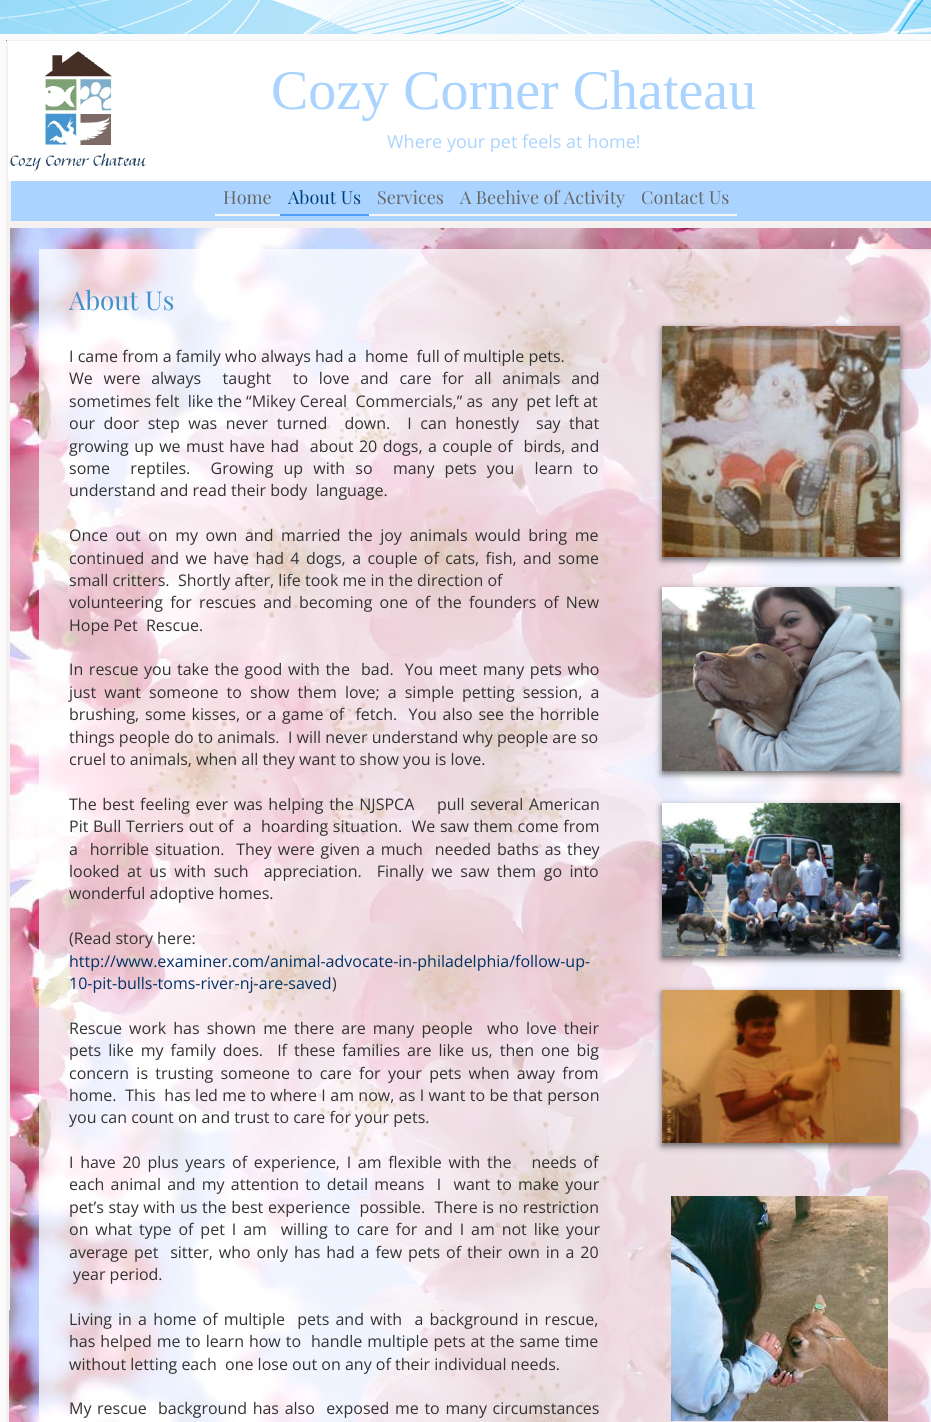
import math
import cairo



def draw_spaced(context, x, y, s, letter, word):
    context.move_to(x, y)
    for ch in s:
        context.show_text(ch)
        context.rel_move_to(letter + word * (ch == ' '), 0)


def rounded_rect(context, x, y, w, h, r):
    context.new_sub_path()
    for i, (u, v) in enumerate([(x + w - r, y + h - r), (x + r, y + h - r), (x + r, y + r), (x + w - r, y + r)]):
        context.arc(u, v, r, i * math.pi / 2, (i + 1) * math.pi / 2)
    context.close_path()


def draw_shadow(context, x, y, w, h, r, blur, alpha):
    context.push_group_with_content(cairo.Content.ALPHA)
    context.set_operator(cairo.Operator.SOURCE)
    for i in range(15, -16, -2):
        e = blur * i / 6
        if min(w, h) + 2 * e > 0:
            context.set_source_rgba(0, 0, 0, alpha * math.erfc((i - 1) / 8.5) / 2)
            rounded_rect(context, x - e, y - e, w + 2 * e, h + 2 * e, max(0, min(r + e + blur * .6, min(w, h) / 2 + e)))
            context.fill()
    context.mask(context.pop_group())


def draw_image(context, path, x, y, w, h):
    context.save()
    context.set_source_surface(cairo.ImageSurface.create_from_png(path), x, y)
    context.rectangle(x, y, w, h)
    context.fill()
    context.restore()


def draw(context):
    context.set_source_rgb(1, 1, 1)
    context.paint()
    draw_image(context, "images/1.png", 0, 0, 931, 34)
    context.set_source_rgb(246 / 255, 241 / 255, 241 / 255)
    context.rectangle(3, 37, 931, 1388)
    context.fill_preserve()
    context.set_source_rgb(251 / 255, 251 / 255, 251 / 255)
    context.set_line_width(6)
    context.stroke()
    context.set_source_rgb(163 / 255, 129 / 255, 84 / 255)
    context.rectangle(6, 40, 1, 1)
    context.fill()
    draw_image(context, "images/2.png", 8, 41, 140, 140)
    context.set_source_rgb(1, 1, 1)
    context.rectangle(148, 41, 783, 140)
    context.fill()
    context.set_source_rgb(170 / 255, 212 / 255, 1)
    context.rectangle(11, 181, 920, 40)
    context.fill()
    context.set_source_rgb(247 / 255, 245 / 255, 246 / 255)
    context.rectangle(215, 214, 65, 2)
    context.fill()
    context.set_source_rgb(80 / 255, 161 / 255, 252 / 255)
    context.rectangle(280, 214, 89, 2)
    context.fill()
    context.set_source_rgb(247 / 255, 245 / 255, 246 / 255)
    context.rectangle(369, 214, 368, 2)
    context.fill()
    draw_image(context, "images/3.png", 10, 228, 921, 540)
    draw_image(context, "images/10.png", 9, 1310, 922, 112)
    draw_image(context, "images/6.png", 10, 768, 921, 543)
    context.set_source_rgba(1, 1, 1, 0.73)
    context.rectangle(39, 249, 892, 1173)
    context.fill()
    context.set_source_rgb(50 / 255, 50 / 255, 50 / 255)
    draw_shadow(context, 662, 329, 238, 231, 0, 3.5, 0.75)
    draw_image(context, "images/4.png", 662, 326, 238, 231)
    draw_shadow(context, 662, 590, 238, 184, 0, 3.5, 0.75)
    draw_image(context, "images/5.png", 662, 587, 238, 184)
    draw_shadow(context, 662, 806, 238, 153, 0, 3.5, 0.75)
    draw_image(context, "images/7.png", 662, 803, 238, 153)
    draw_shadow(context, 662, 993, 238, 153, 0, 3.5, 0.75)
    draw_image(context, "images/8.png", 662, 990, 238, 153)
    draw_image(context, "images/9.png", 671, 1196, 217, 225)
    context.select_font_face("Liberation Serif")
    context.set_font_size(56)
    context.set_source_rgb(170 / 255, 212 / 255, 1)
    context.move_to(271, 109)
    context.show_text("Cozy Corner Chateau")
    context.select_font_face("Open Sans")
    context.set_font_size(18)
    context.move_to(387, 148)
    context.show_text("Where your pet feels at home!")
    context.select_font_face("Playfair Display")
    context.set_source_rgb(102 / 255, 102 / 255, 102 / 255)
    context.move_to(223, 204)
    context.show_text("Home")
    context.set_source_rgb(0, 63 / 255, 127 / 255)
    context.move_to(288, 204)
    context.show_text("About Us")
    context.set_source_rgb(102 / 255, 102 / 255, 102 / 255)
    context.move_to(377, 204)
    context.show_text("Services")
    context.move_to(460, 204)
    context.show_text("A Beehive of Activity")
    context.move_to(641, 204)
    context.show_text("Contact Us")
    context.set_font_size(26)
    context.set_source_rgb(66 / 255, 144 / 255, 202 / 255)
    context.move_to(69, 310)
    context.show_text("About Us")
    context.select_font_face("Open Sans")
    context.set_font_size(16)
    context.set_source_rgb(51 / 255, 51 / 255, 51 / 255)
    context.move_to(69, 362)
    context.show_text("I came from a family who always had a  home  full of multiple pets.")
    draw_spaced(context, 69, 384, "We were always  taught  to love and care for all animals and", 0, 6.6)
    context.move_to(69, 407)
    context.show_text("sometimes felt  like the “Mikey Cereal  Commercials,” as  any  pet left at")
    draw_spaced(context, 69, 429, "our door step was never turned  down.  I can honestly  say that", 0, 4.4)
    draw_spaced(context, 69, 452, "growing up we must have had  about 20 dogs, a couple of  birds, and", 0, 1.25)
    draw_spaced(context, 69, 474, "some  reptiles.  Growing up with so  many pets you  learn to", 0, 6)
    context.move_to(69, 496)
    context.show_text("understand and read their body  language.")
    draw_spaced(context, 69, 541, "Once out on my own and married the joy animals would bring me", 0, 3.4)
    draw_spaced(context, 69, 564, "continued and we have had 4 dogs, a couple of cats, fish, and some", 0, 2.25)
    context.move_to(69, 586)
    context.show_text("small critters.  Shortly after, life took me in the direction of")
    draw_spaced(context, 69, 608, "volunteering for rescues and becoming one of the founders of New", 0, 3)
    context.move_to(69, 631)
    context.show_text("Hope Pet  Rescue.")
    draw_spaced(context, 69, 675, "In rescue you take the good with the  bad.  You meet many pets who", 0, 1.4)
    draw_spaced(context, 69, 698, "just want someone to show them love; a simple petting session, a", 0, 3.9)
    draw_spaced(context, 69, 720, "brushing, some kisses, or a game of  fetch.  You also see the horrible", 0, 1.5)
    context.move_to(69, 743)
    context.show_text("things people do to animals.  I will never understand why people are so")
    context.move_to(69, 765)
    context.show_text("cruel to animals, when all they want to show you is love.")
    draw_spaced(context, 69, 810, "The best feeling ever was helping the NJSPCA    pull several American", 0, 1.5)
    draw_spaced(context, 69, 832, "Pit Bull Terriers out of  a  hoarding situation.  We saw them come from", 0, 0.5)
    draw_spaced(context, 69, 855, "a  horrible situation.  They were given a much  needed baths as they", 0, 1.75)
    draw_spaced(context, 69, 877, "looked at us with such  appreciation.  Finally we saw them go into", 0, 3.4)
    context.move_to(69, 899)
    context.show_text("wonderful adoptive homes.")
    context.move_to(69, 944)
    context.show_text("(Read story here:")
    context.set_source_rgb(0, 51 / 255, 102 / 255)
    context.move_to(69, 967)
    context.show_text("http://www.examiner.com/animal-advocate-in-philadelphia/follow-up-")
    context.move_to(69, 989)
    context.show_text("10-pit-bulls-toms-river-nj-are-saved")
    context.set_source_rgb(51 / 255, 51 / 255, 51 / 255)
    context.move_to(332, 989)
    context.show_text(")")
    draw_spaced(context, 69, 1034, "Rescue work has shown me there are many people  who love their", 0, 3)
    draw_spaced(context, 69, 1056, "pets like my family does.  If these families are like us, then one big", 0, 2.9)
    draw_spaced(context, 69, 1079, "concern is trusting someone to care for your pets when away from", 0, 3.1)
    draw_spaced(context, 69, 1101, "home.  This  has led me to where I am now, as I want to be that person", 0, 0.25)
    context.move_to(69, 1123)
    context.show_text("you can count on and trust to care for your pets.")
    draw_spaced(context, 69, 1168, "I have 20 plus years of experience, I am flexible with the   needs of", 0, 2.5)
    draw_spaced(context, 69, 1190, "each animal and my attention to detail means  I  want to make your", 0, 2)
    draw_spaced(context, 69, 1213, "pet’s stay with us the best experience  possible.  There is no restriction", 0, 0.5)
    draw_spaced(context, 69, 1235, "on what type of pet I am  willing to care for and I am not like your", 0, 2.75)
    draw_spaced(context, 69, 1258, "average pet  sitter, who only has had a few pets of their own in a 20", 0, 1.75)
    context.move_to(73, 1280)
    context.show_text("year period.")
    draw_spaced(context, 69, 1325, "Living in a home of multiple  pets and with  a background in rescue,", 0, 2)
    draw_spaced(context, 69, 1347, "has helped me to learn how to  handle multiple pets at the same time", 0, 0.8)
    context.move_to(69, 1370)
    context.show_text("without letting each  one lose out on any of their individual needs.")
    draw_spaced(context, 69, 1414, "My rescue  background has also  exposed me to many circumstances", 0, 1.5)


surface = cairo.ImageSurface(cairo.Format.RGB24, 931, 1422)
context = cairo.Context(surface)
options = cairo.FontOptions()
options.set_hint_metrics(cairo.HintMetrics.OFF)
options.set_hint_style(cairo.HintStyle.NONE)
context.set_font_options(options)
context.set_miter_limit(4)
draw(context)
surface.write_to_png("out.png")
